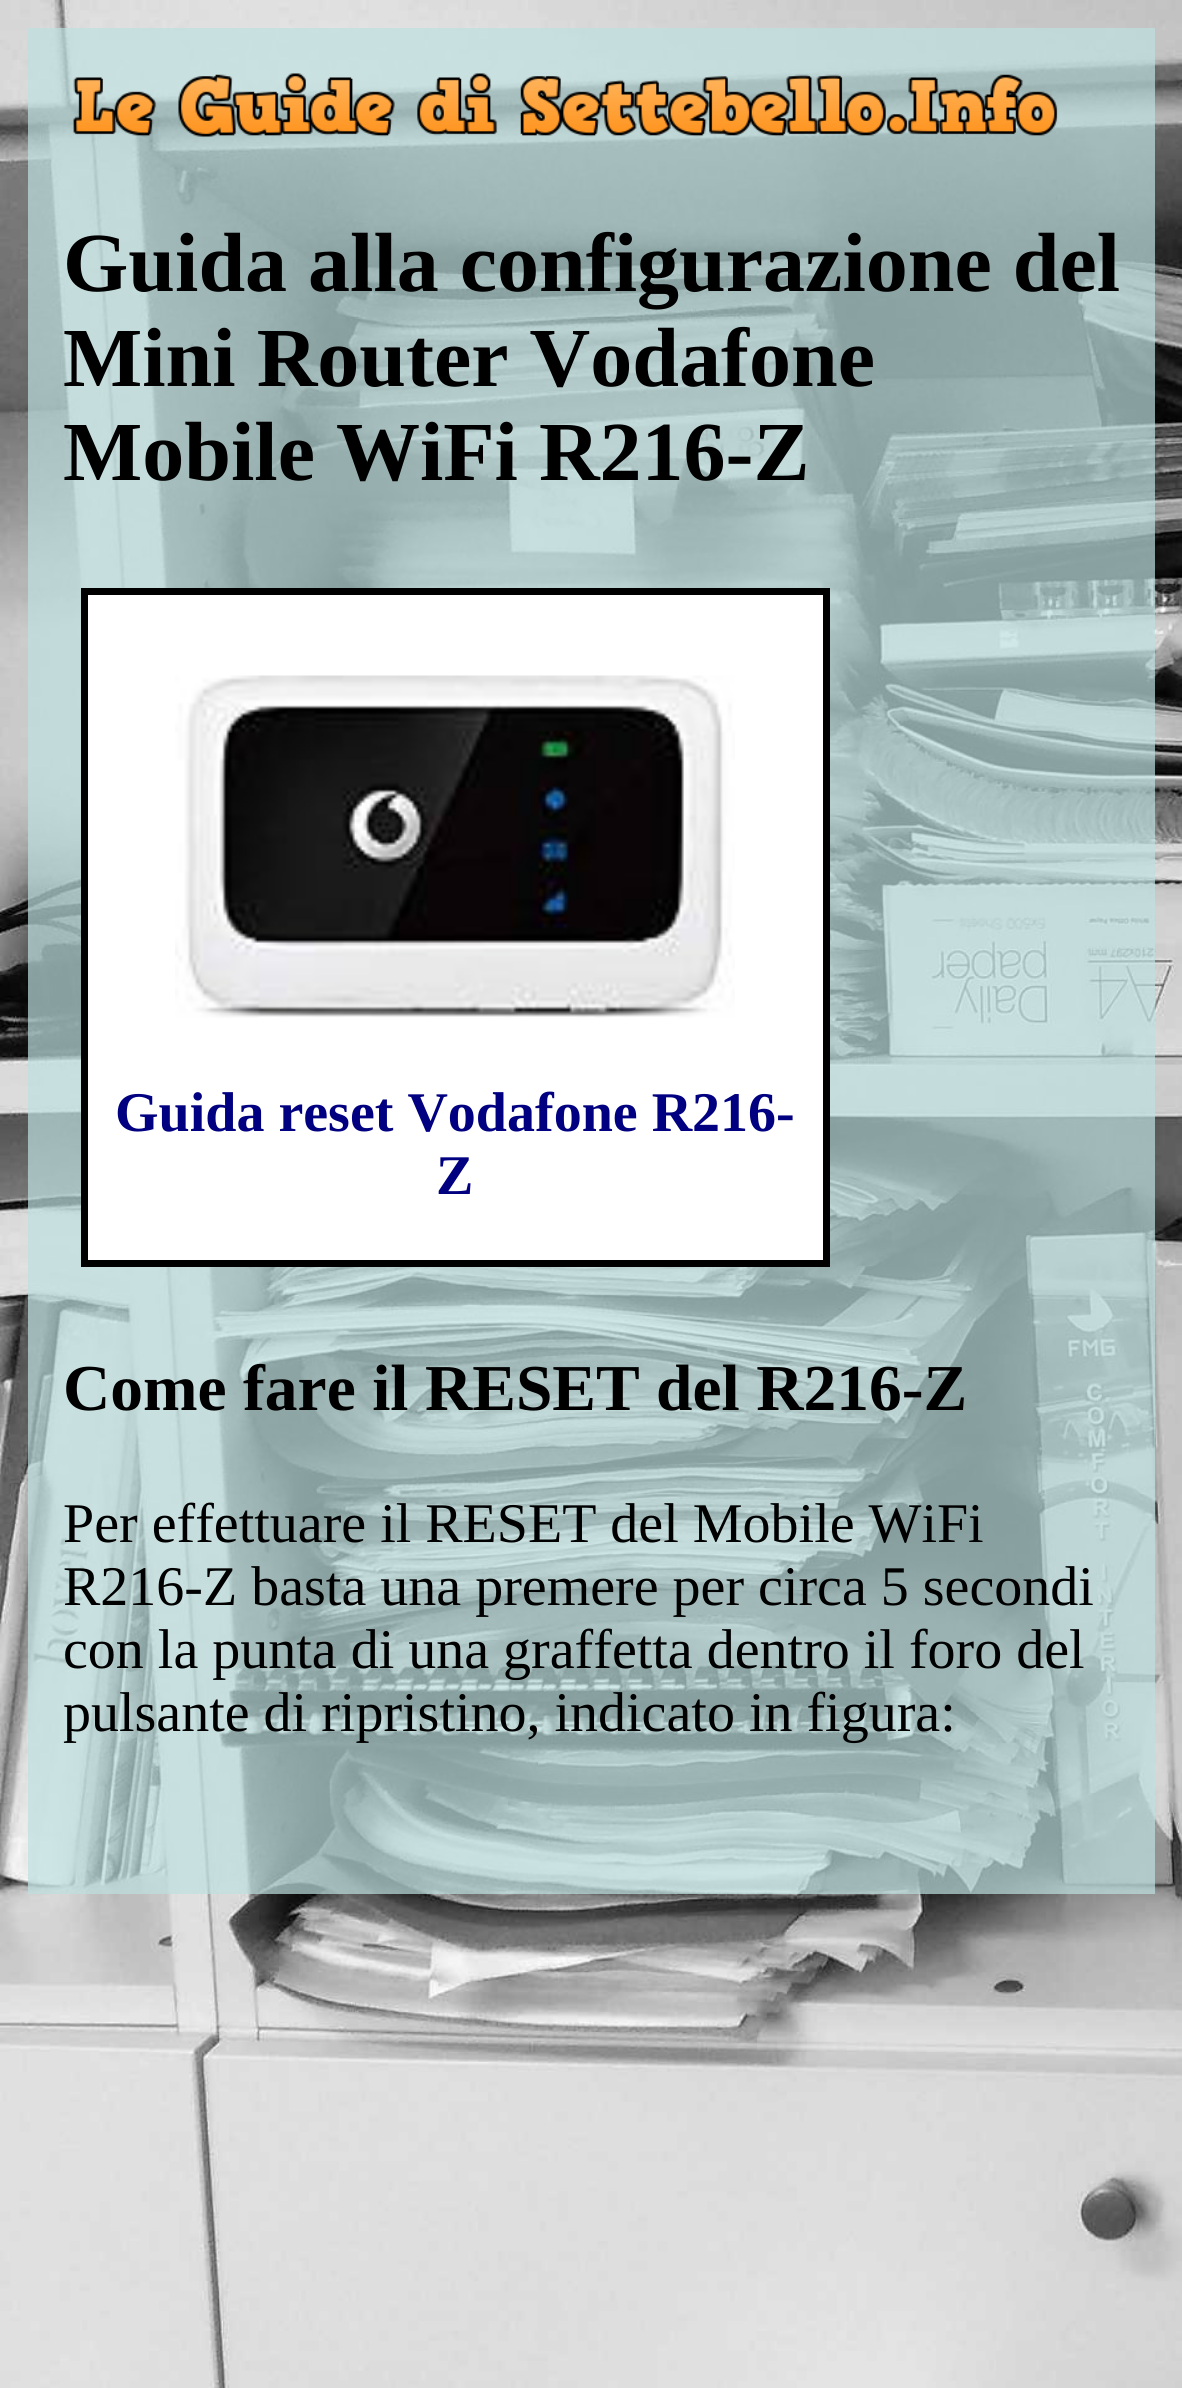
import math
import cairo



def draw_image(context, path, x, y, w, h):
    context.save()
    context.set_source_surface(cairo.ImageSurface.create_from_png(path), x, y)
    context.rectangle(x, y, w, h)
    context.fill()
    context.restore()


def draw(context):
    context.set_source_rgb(1, 1, 1)
    context.paint()
    draw_image(context, "images/1.png", 0, 0, 1182, 2388)
    context.set_source_rgba(192 / 255, 224 / 255, 224 / 255, 0.7)
    context.rectangle(28, 28, 1127, 1866)
    context.fill()
    draw_image(context, "images/2.png", 73, 73, 985, 64)
    context.set_source_rgb(1, 1, 1)
    context.rectangle(84.5, 591.5, 742, 672)
    context.fill_preserve()
    context.set_source_rgb(0, 0, 0)
    context.set_line_width(7)
    context.stroke()
    draw_image(context, "images/3.png", 175, 675, 560, 343)
    context.select_font_face("Liberation Serif", cairo.FontSlant.NORMAL, cairo.FontWeight.BOLD)
    context.set_font_size(84)
    context.move_to(63, 291)
    context.show_text("Guida alla configurazione del")
    context.move_to(63, 386)
    context.show_text("Mini Router Vodafone")
    context.move_to(63, 480)
    context.show_text("Mobile WiFi R216-Z")
    context.set_font_size(56)
    context.set_source_rgb(0, 0, 128 / 255)
    context.move_to(115, 1131)
    context.show_text("Guida reset Vodafone R216-")
    context.move_to(436, 1194)
    context.show_text("Z")
    context.set_font_size(65.5)
    context.set_source_rgb(0, 0, 0)
    context.move_to(63, 1410)
    context.show_text("Come fare il RESET del R216-Z")
    context.select_font_face("Liberation Serif")
    context.set_font_size(56)
    context.move_to(63, 1542)
    context.show_text("Per effettuare il RESET del Mobile WiFi")
    context.move_to(63, 1605)
    context.show_text("R216-Z basta una premere per circa 5 secondi")
    context.move_to(63, 1668)
    context.show_text("con la punta di una graffetta dentro il foro del")
    context.move_to(63, 1731)
    context.show_text("pulsante di ripristino, indicato in figura:")


surface = cairo.ImageSurface(cairo.Format.RGB24, 1182, 2388)
context = cairo.Context(surface)
options = cairo.FontOptions()
options.set_hint_metrics(cairo.HintMetrics.OFF)
options.set_hint_style(cairo.HintStyle.NONE)
context.set_font_options(options)
context.set_miter_limit(4)
draw(context)
surface.write_to_png("out.png")
